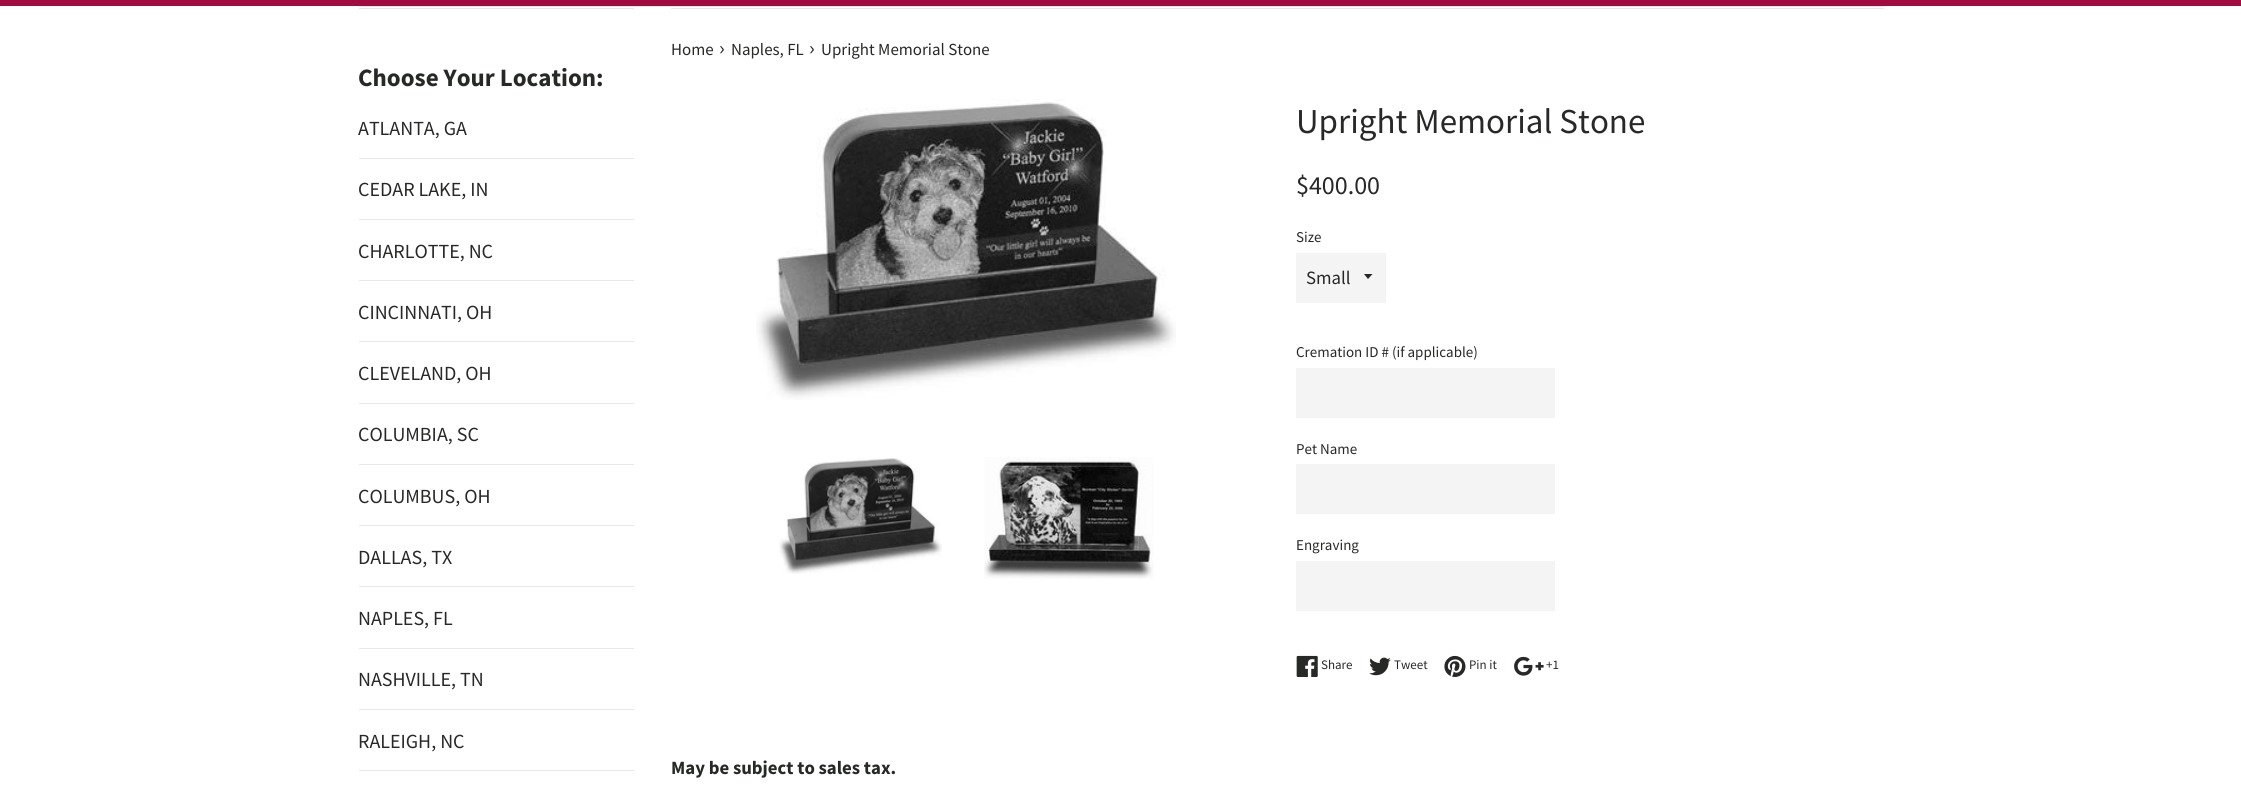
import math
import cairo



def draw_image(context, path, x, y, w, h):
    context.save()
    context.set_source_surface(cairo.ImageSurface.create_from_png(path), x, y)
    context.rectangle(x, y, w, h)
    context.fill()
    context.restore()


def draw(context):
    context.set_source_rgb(1, 1, 1)
    context.paint()
    context.set_source_rgb(162 / 255, 11 / 255, 63 / 255)
    context.rectangle(0, 0, 2241, 6)
    context.fill()
    context.set_source_rgb(232 / 255, 232 / 255, 232 / 255)
    context.rectangle(359, 6, 1525, 1)
    context.fill()
    context.rectangle(359, 8, 275, 1)
    context.fill()
    context.rectangle(359, 158, 275, 1)
    context.fill()
    context.rectangle(359, 219, 275, 1)
    context.fill()
    context.rectangle(359, 280, 275, 1)
    context.fill()
    context.rectangle(359, 341, 275, 1)
    context.fill()
    context.rectangle(359, 403, 275, 1)
    context.fill()
    context.rectangle(359, 464, 275, 1)
    context.fill()
    context.rectangle(359, 525, 275, 1)
    context.fill()
    context.rectangle(359, 586, 275, 1)
    context.fill()
    context.rectangle(359, 648, 275, 1)
    context.fill()
    context.rectangle(359, 709, 275, 1)
    context.fill()
    context.rectangle(359, 770, 275, 1)
    context.fill()
    context.rectangle(671, 8, 1213, 1)
    context.fill()
    draw_image(context, "images/1.png", 756, 99, 420, 301)
    draw_image(context, "images/2.png", 779, 458, 163, 116)
    draw_image(context, "images/3.png", 984, 457, 170, 122)
    context.set_source_rgb(244 / 255, 244 / 255, 244 / 255)
    context.rectangle(1296, 253, 90, 50)
    context.fill()
    context.set_source_rgb(39 / 255, 41 / 255, 38 / 255)
    context.new_path()
    context.move_to(1364, 274)
    context.line_to(1368, 279)
    context.line_to(1372.5, 274)
    context.close_path()
    context.fill()
    context.set_source_rgb(244 / 255, 244 / 255, 244 / 255)
    context.rectangle(1296, 368, 259, 50)
    context.fill()
    context.rectangle(1296, 464, 259, 50)
    context.fill()
    context.rectangle(1296, 561, 259, 50)
    context.fill()
    draw_image(context, "images/4.png", 1296, 655, 22, 22)
    draw_image(context, "images/5.png", 1369, 657, 22, 19)
    draw_image(context, "images/6.png", 1444, 655, 22, 22)
    draw_image(context, "images/7.png", 1514, 656, 30, 20)
    context.select_font_face("Source Sans Pro", cairo.FontSlant.NORMAL, cairo.FontWeight.BOLD)
    context.set_font_size(25)
    context.set_source_rgb(39 / 255, 41 / 255, 38 / 255)
    context.move_to(358, 86)
    context.show_text("Choose Your Location:")
    context.select_font_face("Source Sans Pro")
    context.set_font_size(20)
    context.move_to(358, 135)
    context.show_text("ATLANTA, GA")
    context.move_to(358, 196)
    context.show_text("CEDAR LAKE, IN")
    context.move_to(358, 258)
    context.show_text("CHARLOTTE, NC")
    context.move_to(358, 319)
    context.show_text("CINCINNATI, OH")
    context.move_to(358, 380)
    context.show_text("CLEVELAND, OH")
    context.move_to(358, 441)
    context.show_text("COLUMBIA, SC")
    context.move_to(358, 503)
    context.show_text("COLUMBUS, OH")
    context.move_to(358, 564)
    context.show_text("DALLAS, TX")
    context.move_to(358, 625)
    context.show_text("NAPLES, FL")
    context.move_to(358, 686)
    context.show_text("NASHVILLE, TN")
    context.move_to(358, 748)
    context.show_text("RALEIGH, NC")
    context.set_font_size(16.9)
    context.move_to(671, 55)
    context.show_text("Home")
    context.set_font_size(21)
    context.move_to(719, 55)
    context.show_text("›")
    context.set_font_size(16.9)
    context.move_to(731, 55)
    context.show_text("Naples, FL")
    context.set_font_size(21)
    context.move_to(809, 55)
    context.show_text("›")
    context.set_font_size(16.9)
    context.move_to(821, 55)
    context.show_text("Upright Memorial Stone")
    context.set_font_size(35)
    context.move_to(1296, 133)
    context.show_text("Upright Memorial Stone")
    context.set_font_size(26)
    context.move_to(1296, 194)
    context.show_text("$400.00")
    context.set_font_size(15)
    context.move_to(1296, 242)
    context.show_text("Size")
    context.set_font_size(18.75)
    context.move_to(1306, 284)
    context.show_text("Small")
    context.set_font_size(15)
    context.move_to(1296, 357)
    context.show_text("Cremation ID # (if applicable)")
    context.move_to(1296, 454)
    context.show_text("Pet Name")
    context.move_to(1296, 550)
    context.show_text("Engraving")
    context.set_font_size(13)
    context.move_to(1321, 669)
    context.show_text("Share")
    context.move_to(1394, 669)
    context.show_text("Tweet")
    context.move_to(1469, 669)
    context.show_text("Pin it")
    context.move_to(1546, 669)
    context.show_text("+1")
    context.select_font_face("Source Sans Pro", cairo.FontSlant.NORMAL, cairo.FontWeight.BOLD)
    context.set_font_size(18.75)
    context.move_to(671, 774)
    context.show_text("May be subject to sales tax.")


surface = cairo.ImageSurface(cairo.Format.RGB24, 2241, 795)
context = cairo.Context(surface)
options = cairo.FontOptions()
options.set_hint_metrics(cairo.HintMetrics.OFF)
options.set_hint_style(cairo.HintStyle.NONE)
context.set_font_options(options)
context.set_miter_limit(4)
draw(context)
surface.write_to_png("out.png")
